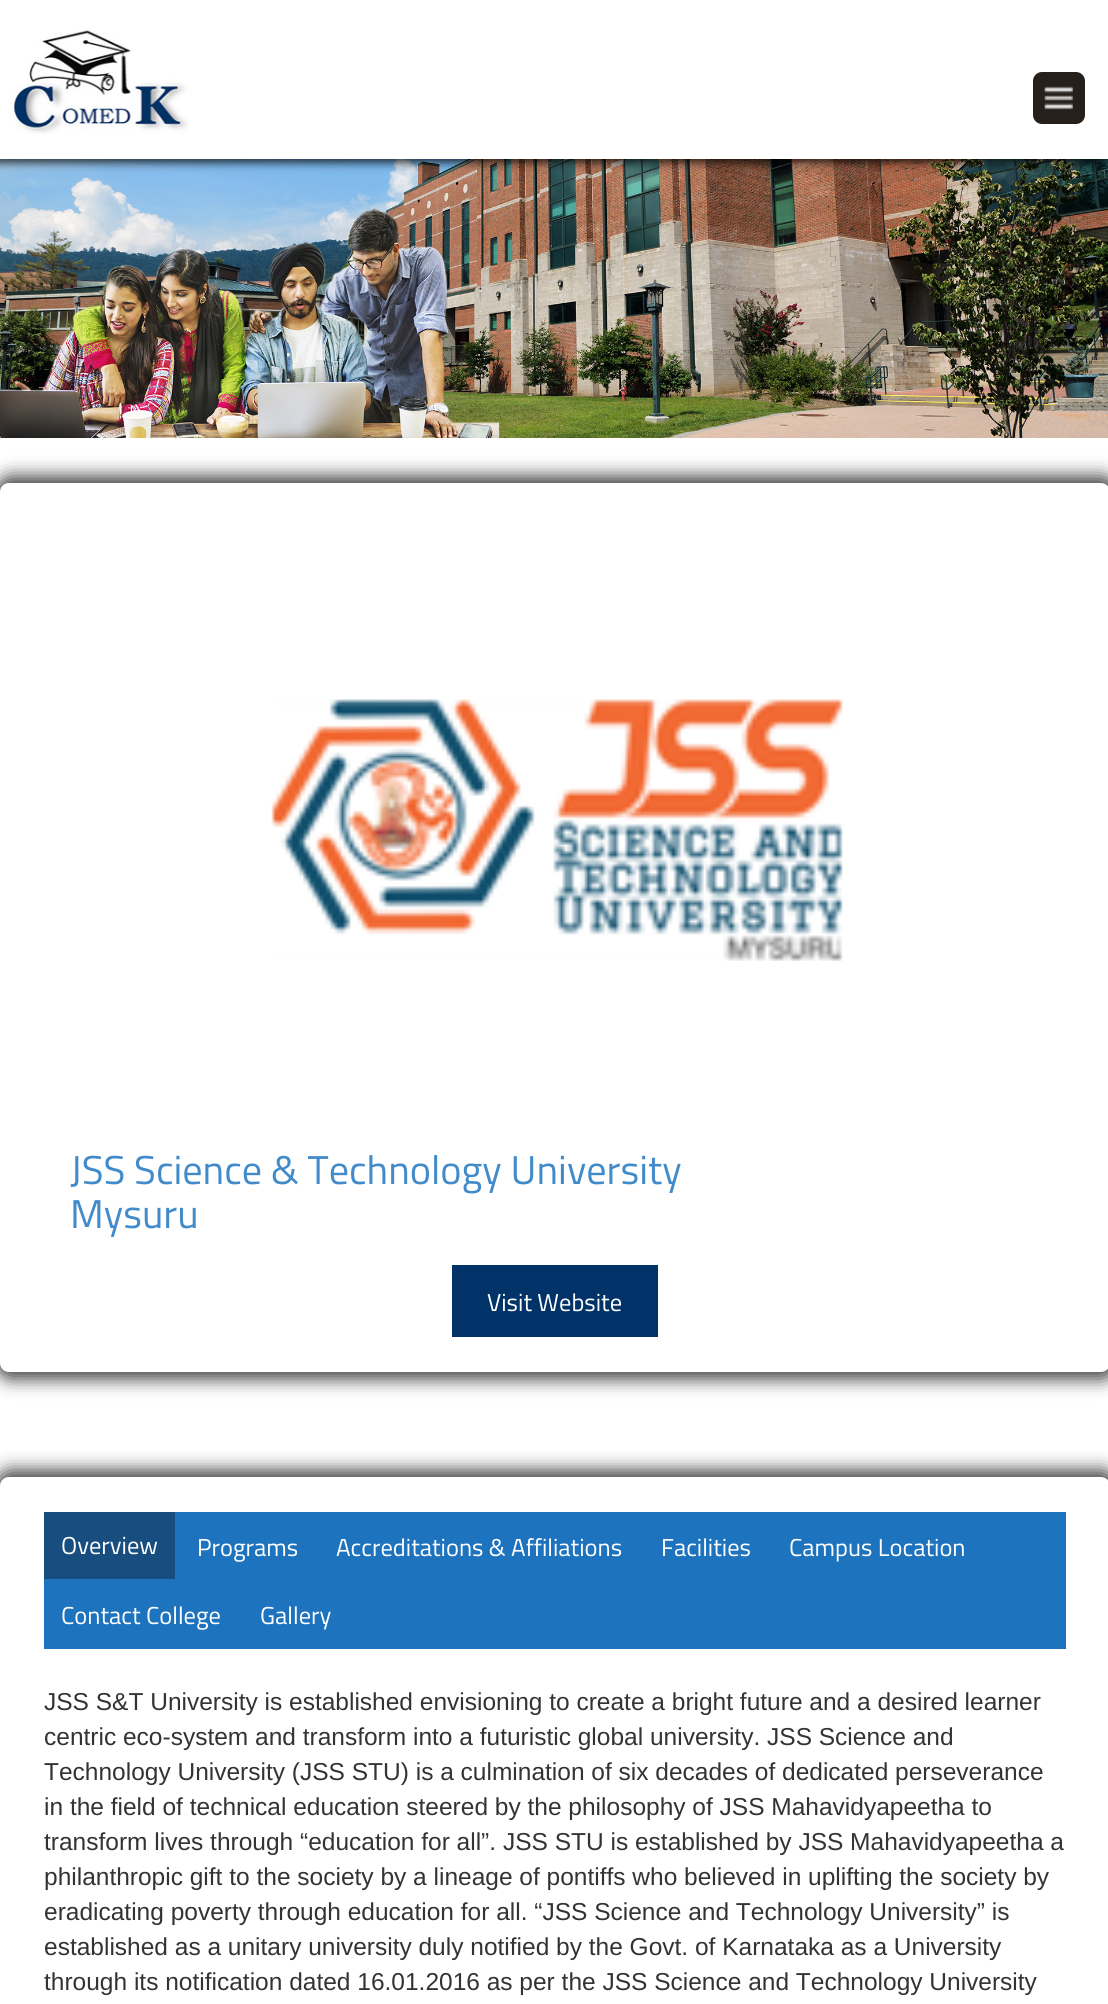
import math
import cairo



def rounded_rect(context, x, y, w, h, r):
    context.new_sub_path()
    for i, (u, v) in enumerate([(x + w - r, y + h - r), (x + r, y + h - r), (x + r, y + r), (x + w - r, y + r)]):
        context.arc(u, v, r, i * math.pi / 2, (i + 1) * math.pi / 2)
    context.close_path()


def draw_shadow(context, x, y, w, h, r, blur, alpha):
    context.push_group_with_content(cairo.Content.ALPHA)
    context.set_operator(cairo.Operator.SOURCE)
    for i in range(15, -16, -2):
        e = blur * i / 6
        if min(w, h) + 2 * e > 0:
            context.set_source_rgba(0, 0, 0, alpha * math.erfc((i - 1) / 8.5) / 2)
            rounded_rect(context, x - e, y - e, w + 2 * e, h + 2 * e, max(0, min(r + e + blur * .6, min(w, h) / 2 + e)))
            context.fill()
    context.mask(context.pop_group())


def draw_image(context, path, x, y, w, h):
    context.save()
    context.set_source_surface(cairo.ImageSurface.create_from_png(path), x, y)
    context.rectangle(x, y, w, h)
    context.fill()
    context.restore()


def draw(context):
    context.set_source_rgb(1, 1, 1)
    context.paint()
    draw_image(context, "images/3.png", 0, 159, 1108, 280)
    context.set_source_rgb(0, 0, 0)
    draw_shadow(context, -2, 7, 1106, 156, 0, 4.5, 0.75)
    context.set_source_rgb(1, 1, 1)
    context.rectangle(0, 0, 1108, 159)
    context.fill()
    draw_image(context, "images/1.png", 10, 30, 179, 104)
    context.set_source_rgb(38 / 255, 32 / 255, 28 / 255)
    rounded_rect(context, 1033, 72, 52, 52, 9)
    context.fill()
    draw_image(context, "images/2.png", 1044, 86, 29, 24)
    context.set_source_rgb(0, 0, 0)
    draw_shadow(context, -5, 476, 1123, 903, 16, 9, 0.75)
    context.set_source_rgb(1, 1, 1)
    rounded_rect(context, 0, 483, 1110, 889, 9)
    context.fill()
    draw_image(context, "images/4.png", 271, 699, 572, 262)
    context.set_source_rgb(1 / 255, 51 / 255, 104 / 255)
    context.rectangle(452, 1265, 206, 72)
    context.fill()
    context.set_source_rgb(0, 0, 0)
    draw_shadow(context, -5, 1470, 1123, 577, 16, 9, 0.75)
    context.set_source_rgb(1, 1, 1)
    rounded_rect(context, 0, 1477, 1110, 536, 9)
    context.fill()
    context.set_source_rgb(30 / 255, 115 / 255, 190 / 255)
    context.rectangle(44, 1512, 1022, 137)
    context.fill()
    context.set_source_rgb(23 / 255, 78 / 255, 127 / 255)
    context.rectangle(44, 1512, 131, 67)
    context.fill()
    context.select_font_face("Titillium Web")
    context.set_font_size(40.25)
    context.set_source_rgb(66 / 255, 139 / 255, 202 / 255)
    context.move_to(70, 1184)
    context.show_text("JSS Science & Technology University")
    context.move_to(70, 1228)
    context.show_text("Mysuru")
    context.set_font_size(24.5)
    context.set_source_rgb(1, 1, 1)
    context.move_to(487, 1311)
    context.show_text("Visit Website")
    context.move_to(61, 1554)
    context.show_text("Overview")
    context.move_to(197, 1556)
    context.show_text("Programs")
    context.move_to(336, 1556)
    context.show_text("Accreditations & Affiliations")
    context.move_to(661, 1556)
    context.show_text("Facilities")
    context.move_to(789, 1556)
    context.show_text("Campus Location")
    context.move_to(61, 1624)
    context.show_text("Contact College")
    context.move_to(260, 1624)
    context.show_text("Gallery")
    context.select_font_face("Liberation Sans")
    context.set_source_rgb(51 / 255, 51 / 255, 51 / 255)
    context.move_to(44, 1710)
    context.show_text("JSS S&T University is established envisioning to create a bright future and a desired learner")
    context.move_to(44, 1745)
    context.show_text("centric eco-system and transform into a futuristic global university. JSS Science and")
    context.move_to(44, 1780)
    context.show_text("Technology University (JSS STU) is a culmination of six decades of dedicated perseverance")
    context.move_to(44, 1815)
    context.show_text("in the field of technical education steered by the philosophy of JSS Mahavidyapeetha to")
    context.move_to(44, 1850)
    context.show_text("transform lives through “education for all”. JSS STU is established by JSS Mahavidyapeetha a")
    context.move_to(44, 1885)
    context.show_text("philanthropic gift to the society by a lineage of pontiffs who believed in uplifting the society by")
    context.move_to(44, 1920)
    context.show_text("eradicating poverty through education for all. “JSS Science and Technology University” is")
    context.move_to(44, 1955)
    context.show_text("established as a unitary university duly notified by the Govt. of Karnataka as a University")
    context.move_to(44, 1990)
    context.show_text("through its notification dated 16.01.2016 as per the JSS Science and Technology University")


surface = cairo.ImageSurface(cairo.Format.RGB24, 1108, 2004)
context = cairo.Context(surface)
options = cairo.FontOptions()
options.set_hint_metrics(cairo.HintMetrics.OFF)
options.set_hint_style(cairo.HintStyle.NONE)
context.set_font_options(options)
context.set_miter_limit(4)
draw(context)
surface.write_to_png("out.png")
